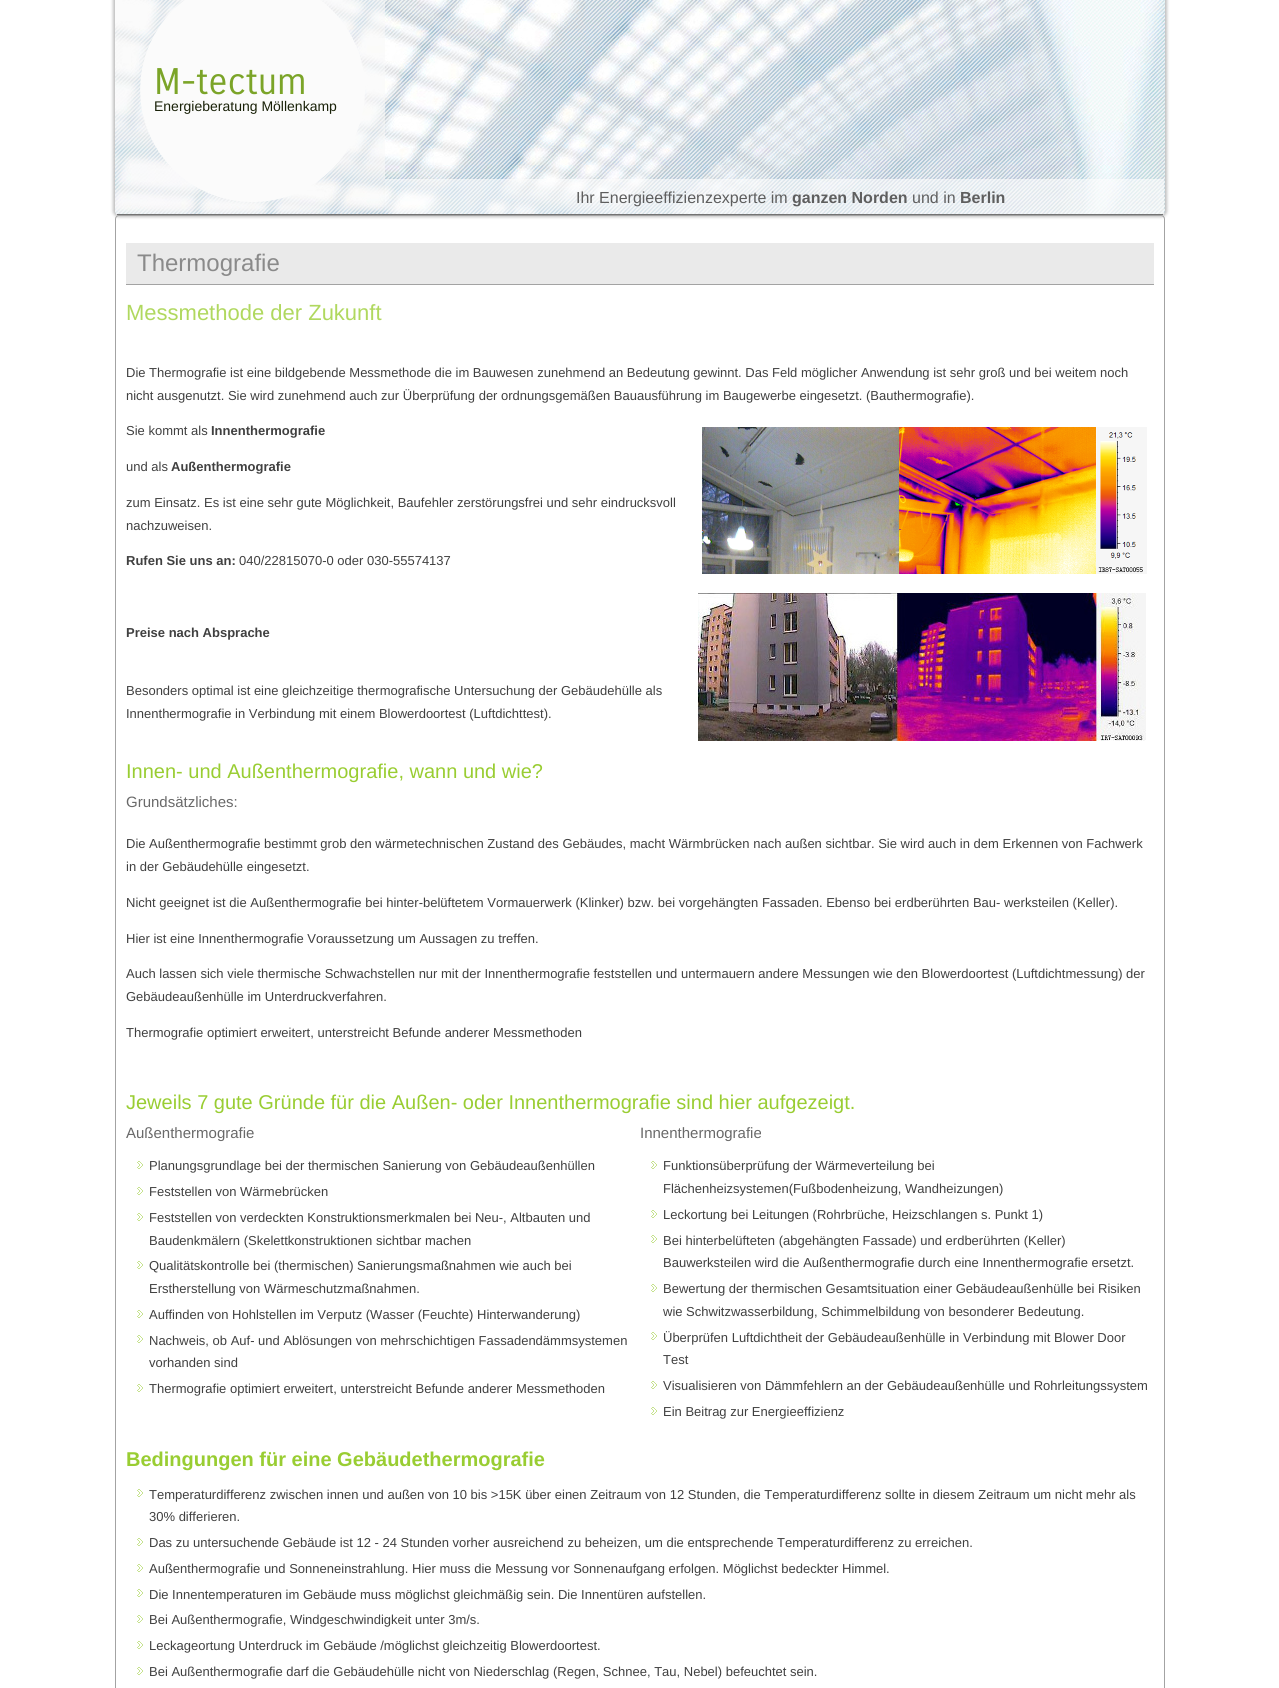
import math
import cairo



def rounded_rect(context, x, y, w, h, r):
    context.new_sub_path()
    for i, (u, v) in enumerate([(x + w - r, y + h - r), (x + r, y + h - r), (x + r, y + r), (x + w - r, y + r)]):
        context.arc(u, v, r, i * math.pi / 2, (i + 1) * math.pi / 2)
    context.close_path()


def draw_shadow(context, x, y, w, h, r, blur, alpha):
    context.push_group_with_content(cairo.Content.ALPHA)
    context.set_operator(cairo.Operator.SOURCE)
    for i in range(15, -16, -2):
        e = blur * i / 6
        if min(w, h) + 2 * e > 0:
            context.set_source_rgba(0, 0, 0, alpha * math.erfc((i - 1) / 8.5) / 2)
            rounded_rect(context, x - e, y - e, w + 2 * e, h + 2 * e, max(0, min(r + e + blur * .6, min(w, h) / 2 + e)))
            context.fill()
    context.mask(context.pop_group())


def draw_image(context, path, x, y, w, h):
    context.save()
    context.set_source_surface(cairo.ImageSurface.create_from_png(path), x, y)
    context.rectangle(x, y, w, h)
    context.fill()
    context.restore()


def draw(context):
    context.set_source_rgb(1, 1, 1)
    context.paint()
    context.set_source_rgb(0, 0, 0)
    draw_shadow(context, 113, -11, 1054, 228, 6, 1.5, 0.25)
    draw_image(context, "images/1.png", 115, 0, 1050, 215)
    context.set_source_rgb(115 / 255, 115 / 255, 115 / 255)
    context.rectangle(117, 214, 1046, 1)
    context.fill()
    rounded_rect(context, 115.5, 215.5, 1049, 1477, 3.5)
    context.set_source_rgb(163 / 255, 163 / 255, 163 / 255)
    context.set_line_width(1)
    context.stroke()
    context.set_source_rgb(234 / 255, 234 / 255, 234 / 255)
    context.rectangle(126, 243, 1028, 41)
    context.fill()
    context.set_source_rgb(163 / 255, 163 / 255, 163 / 255)
    context.rectangle(126, 284, 1028, 1)
    context.fill()
    draw_image(context, "images/2.png", 702, 427, 445, 147)
    draw_image(context, "images/3.png", 698, 593, 448, 148)
    draw_image(context, "images/4.png", 137, 1161, 6, 8)
    draw_image(context, "images/4.png", 137, 1187, 6, 8)
    draw_image(context, "images/4.png", 137, 1213, 6, 8)
    draw_image(context, "images/4.png", 137, 1261, 6, 8)
    draw_image(context, "images/4.png", 137, 1310, 6, 8)
    draw_image(context, "images/4.png", 137, 1335, 6, 8)
    draw_image(context, "images/4.png", 137, 1384, 6, 8)
    draw_image(context, "images/4.png", 651, 1161, 6, 8)
    draw_image(context, "images/4.png", 651, 1210, 6, 8)
    draw_image(context, "images/4.png", 651, 1235, 6, 8)
    draw_image(context, "images/4.png", 651, 1284, 6, 8)
    draw_image(context, "images/4.png", 651, 1332, 6, 8)
    draw_image(context, "images/4.png", 651, 1381, 6, 8)
    draw_image(context, "images/4.png", 651, 1407, 6, 8)
    draw_image(context, "images/4.png", 137, 1489, 6, 8)
    draw_image(context, "images/4.png", 137, 1538, 6, 8)
    draw_image(context, "images/4.png", 137, 1564, 6, 8)
    draw_image(context, "images/4.png", 137, 1589, 6, 8)
    draw_image(context, "images/4.png", 137, 1615, 6, 8)
    draw_image(context, "images/4.png", 137, 1641, 6, 8)
    draw_image(context, "images/4.png", 137, 1667, 6, 8)
    context.select_font_face("Carrois Gothic")
    context.set_font_size(36)
    context.set_source_rgb(123 / 255, 164 / 255, 40 / 255)
    context.move_to(154, 94)
    context.show_text("M-tectum")
    context.select_font_face("Liberation Sans")
    context.set_font_size(14)
    context.set_source_rgb(25 / 255, 33 / 255, 8 / 255)
    context.move_to(154, 111)
    context.show_text("Energieberatung Möllenkamp")
    context.set_font_size(16)
    context.set_source_rgb(94 / 255, 94 / 255, 94 / 255)
    context.move_to(576, 203)
    context.show_text("Ihr Energieeffizienzexperte im")
    context.select_font_face("Liberation Sans", cairo.FontSlant.NORMAL, cairo.FontWeight.BOLD)
    context.move_to(792, 203)
    context.show_text("ganzen Norden")
    context.select_font_face("Liberation Sans")
    context.move_to(912, 203)
    context.show_text("und in")
    context.select_font_face("Liberation Sans", cairo.FontSlant.NORMAL, cairo.FontWeight.BOLD)
    context.move_to(960, 203)
    context.show_text("Berlin")
    context.select_font_face("Liberation Sans")
    context.set_font_size(24)
    context.set_source_rgb(138 / 255, 138 / 255, 138 / 255)
    context.move_to(137, 271)
    context.show_text("Thermografie")
    context.set_font_size(22)
    context.set_source_rgb(176 / 255, 216 / 255, 95 / 255)
    context.move_to(126, 320)
    context.show_text("Messmethode der Zukunft")
    context.set_font_size(13)
    context.set_source_rgb(64 / 255, 64 / 255, 64 / 255)
    context.move_to(126, 377)
    context.show_text("Die Thermografie ist eine bildgebende Messmethode die im Bauwesen zunehmend an Bedeutung gewinnt. Das Feld möglicher Anwendung ist sehr groß und bei weitem noch")
    context.move_to(126, 400)
    context.show_text("nicht ausgenutzt. Sie wird zunehmend auch zur Überprüfung der ordnungsgemäßen Bauausführung im Baugewerbe eingesetzt. (Bauthermografie).")
    context.move_to(126, 435)
    context.show_text("Sie kommt als")
    context.select_font_face("Liberation Sans", cairo.FontSlant.NORMAL, cairo.FontWeight.BOLD)
    context.move_to(211, 435)
    context.show_text("Innenthermografie")
    context.select_font_face("Liberation Sans")
    context.move_to(126, 471)
    context.show_text("und als")
    context.select_font_face("Liberation Sans", cairo.FontSlant.NORMAL, cairo.FontWeight.BOLD)
    context.move_to(171, 471)
    context.show_text("Außenthermografie")
    context.select_font_face("Liberation Sans")
    context.move_to(126, 507)
    context.show_text("zum Einsatz. Es ist eine sehr gute Möglichkeit, Baufehler zerstörungsfrei und sehr eindrucksvoll")
    context.move_to(126, 530)
    context.show_text("nachzuweisen.")
    context.select_font_face("Liberation Sans", cairo.FontSlant.NORMAL, cairo.FontWeight.BOLD)
    context.move_to(126, 565)
    context.show_text("Rufen Sie uns an:")
    context.select_font_face("Liberation Sans")
    context.move_to(239, 565)
    context.show_text("040/22815070-0 oder 030-55574137")
    context.select_font_face("Liberation Sans", cairo.FontSlant.NORMAL, cairo.FontWeight.BOLD)
    context.move_to(126, 637)
    context.show_text("Preise nach Absprache")
    context.select_font_face("Liberation Sans")
    context.move_to(126, 695)
    context.show_text("Besonders optimal ist eine gleichzeitige thermografische Untersuchung der Gebäudehülle als")
    context.move_to(126, 718)
    context.show_text("Innenthermografie in Verbindung mit einem Blowerdoortest (Luftdichttest).")
    context.set_font_size(20)
    context.set_source_rgb(153 / 255, 205 / 255, 50 / 255)
    context.move_to(126, 778)
    context.show_text("Innen- und Außenthermografie, wann und wie?")
    context.set_font_size(15)
    context.set_source_rgb(105 / 255, 105 / 255, 105 / 255)
    context.move_to(126, 807)
    context.show_text("Grundsätzliches:")
    context.set_font_size(13)
    context.set_source_rgb(64 / 255, 64 / 255, 64 / 255)
    context.move_to(126, 848)
    context.show_text("Die Außenthermografie bestimmt grob den wärmetechnischen Zustand des Gebäudes, macht Wärmbrücken nach außen sichtbar. Sie wird auch in dem Erkennen von Fachwerk")
    context.move_to(126, 871)
    context.show_text("in der Gebäudehülle eingesetzt.")
    context.move_to(126, 907)
    context.show_text("Nicht geeignet ist die Außenthermografie bei hinter-belüftetem Vormauerwerk (Klinker) bzw. bei vorgehängten Fassaden. Ebenso bei erdberührten Bau- werksteilen (Keller).")
    context.move_to(126, 943)
    context.show_text("Hier ist eine Innenthermografie Voraussetzung um Aussagen zu treffen.")
    context.move_to(126, 978)
    context.show_text("Auch lassen sich viele thermische Schwachstellen nur mit der Innenthermografie feststellen und untermauern andere Messungen wie den Blowerdoortest (Luftdichtmessung) der")
    context.move_to(126, 1001)
    context.show_text("Gebäudeaußenhülle im Unterdruckverfahren.")
    context.move_to(126, 1037)
    context.show_text("Thermografie optimiert erweitert, unterstreicht Befunde anderer Messmethoden")
    context.set_font_size(20)
    context.set_source_rgb(153 / 255, 205 / 255, 50 / 255)
    context.move_to(126, 1109)
    context.show_text("Jeweils 7 gute Gründe für die Außen- oder Innenthermografie sind hier aufgezeigt.")
    context.set_font_size(15)
    context.set_source_rgb(105 / 255, 105 / 255, 105 / 255)
    context.move_to(126, 1138)
    context.show_text("Außenthermografie")
    context.set_font_size(13)
    context.set_source_rgb(64 / 255, 64 / 255, 64 / 255)
    context.move_to(149, 1170)
    context.show_text("Planungsgrundlage bei der thermischen Sanierung von Gebäudeaußenhüllen")
    context.move_to(149, 1196)
    context.show_text("Feststellen von Wärmebrücken")
    context.move_to(149, 1222)
    context.show_text("Feststellen von verdeckten Konstruktionsmerkmalen bei Neu-, Altbauten und")
    context.move_to(149, 1245)
    context.show_text("Baudenkmälern (Skelettkonstruktionen sichtbar machen")
    context.move_to(149, 1270)
    context.show_text("Qualitätskontrolle bei (thermischen) Sanierungsmaßnahmen wie auch bei")
    context.move_to(149, 1293)
    context.show_text("Erstherstellung von Wärmeschutzmaßnahmen.")
    context.move_to(149, 1319)
    context.show_text("Auffinden von Hohlstellen im Verputz (Wasser (Feuchte) Hinterwanderung)")
    context.move_to(149, 1345)
    context.show_text("Nachweis, ob Auf- und Ablösungen von mehrschichtigen Fassadendämmsystemen")
    context.move_to(149, 1367)
    context.show_text("vorhanden sind")
    context.move_to(149, 1393)
    context.show_text("Thermografie optimiert erweitert, unterstreicht Befunde anderer Messmethoden")
    context.set_font_size(15)
    context.set_source_rgb(105 / 255, 105 / 255, 105 / 255)
    context.move_to(640, 1138)
    context.show_text("Innenthermografie")
    context.set_font_size(13)
    context.set_source_rgb(64 / 255, 64 / 255, 64 / 255)
    context.move_to(663, 1170)
    context.show_text("Funktionsüberprüfung der Wärmeverteilung bei")
    context.move_to(663, 1193)
    context.show_text("Flächenheizsystemen(Fußbodenheizung, Wandheizungen)")
    context.move_to(663, 1219)
    context.show_text("Leckortung bei Leitungen (Rohrbrüche, Heizschlangen s. Punkt 1)")
    context.move_to(663, 1245)
    context.show_text("Bei hinterbelüfteten (abgehängten Fassade) und erdberührten (Keller)")
    context.move_to(663, 1267)
    context.show_text("Bauwerksteilen wird die Außenthermografie durch eine Innenthermografie ersetzt.")
    context.move_to(663, 1293)
    context.show_text("Bewertung der thermischen Gesamtsituation einer Gebäudeaußenhülle bei Risiken")
    context.move_to(663, 1316)
    context.show_text("wie Schwitzwasserbildung, Schimmelbildung von besonderer Bedeutung.")
    context.move_to(663, 1342)
    context.show_text("Überprüfen Luftdichtheit der Gebäudeaußenhülle in Verbindung mit Blower Door")
    context.move_to(663, 1364)
    context.show_text("Test")
    context.move_to(663, 1390)
    context.show_text("Visualisieren von Dämmfehlern an der Gebäudeaußenhülle und Rohrleitungssystem")
    context.move_to(663, 1416)
    context.show_text("Ein Beitrag zur Energieeffizienz")
    context.select_font_face("Liberation Sans", cairo.FontSlant.NORMAL, cairo.FontWeight.BOLD)
    context.set_font_size(20)
    context.set_source_rgb(153 / 255, 205 / 255, 50 / 255)
    context.move_to(126, 1466)
    context.show_text("Bedingungen für eine Gebäudethermografie")
    context.select_font_face("Liberation Sans")
    context.set_font_size(13)
    context.set_source_rgb(64 / 255, 64 / 255, 64 / 255)
    context.move_to(149, 1499)
    context.show_text("Temperaturdifferenz zwischen innen und außen von 10 bis >15K über einen Zeitraum von 12 Stunden, die Temperaturdifferenz sollte in diesem Zeitraum um nicht mehr als")
    context.move_to(149, 1521)
    context.show_text("30% differieren.")
    context.move_to(149, 1547)
    context.show_text("Das zu untersuchende Gebäude ist 12 - 24 Stunden vorher ausreichend zu beheizen, um die entsprechende Temperaturdifferenz zu erreichen.")
    context.move_to(149, 1573)
    context.show_text("Außenthermografie und Sonneneinstrahlung. Hier muss die Messung vor Sonnenaufgang erfolgen. Möglichst bedeckter Himmel.")
    context.move_to(149, 1599)
    context.show_text("Die Innentemperaturen im Gebäude muss möglichst gleichmäßig sein. Die Innentüren aufstellen.")
    context.move_to(149, 1624)
    context.show_text("Bei Außenthermografie, Windgeschwindigkeit unter 3m/s.")
    context.move_to(149, 1650)
    context.show_text("Leckageortung Unterdruck im Gebäude /möglichst gleichzeitig Blowerdoortest.")
    context.move_to(149, 1676)
    context.show_text("Bei Außenthermografie darf die Gebäudehülle nicht von Niederschlag (Regen, Schnee, Tau, Nebel) befeuchtet sein.")


surface = cairo.ImageSurface(cairo.Format.RGB24, 1279, 1688)
context = cairo.Context(surface)
options = cairo.FontOptions()
options.set_hint_metrics(cairo.HintMetrics.OFF)
options.set_hint_style(cairo.HintStyle.NONE)
context.set_font_options(options)
context.set_miter_limit(4)
draw(context)
surface.write_to_png("out.png")
